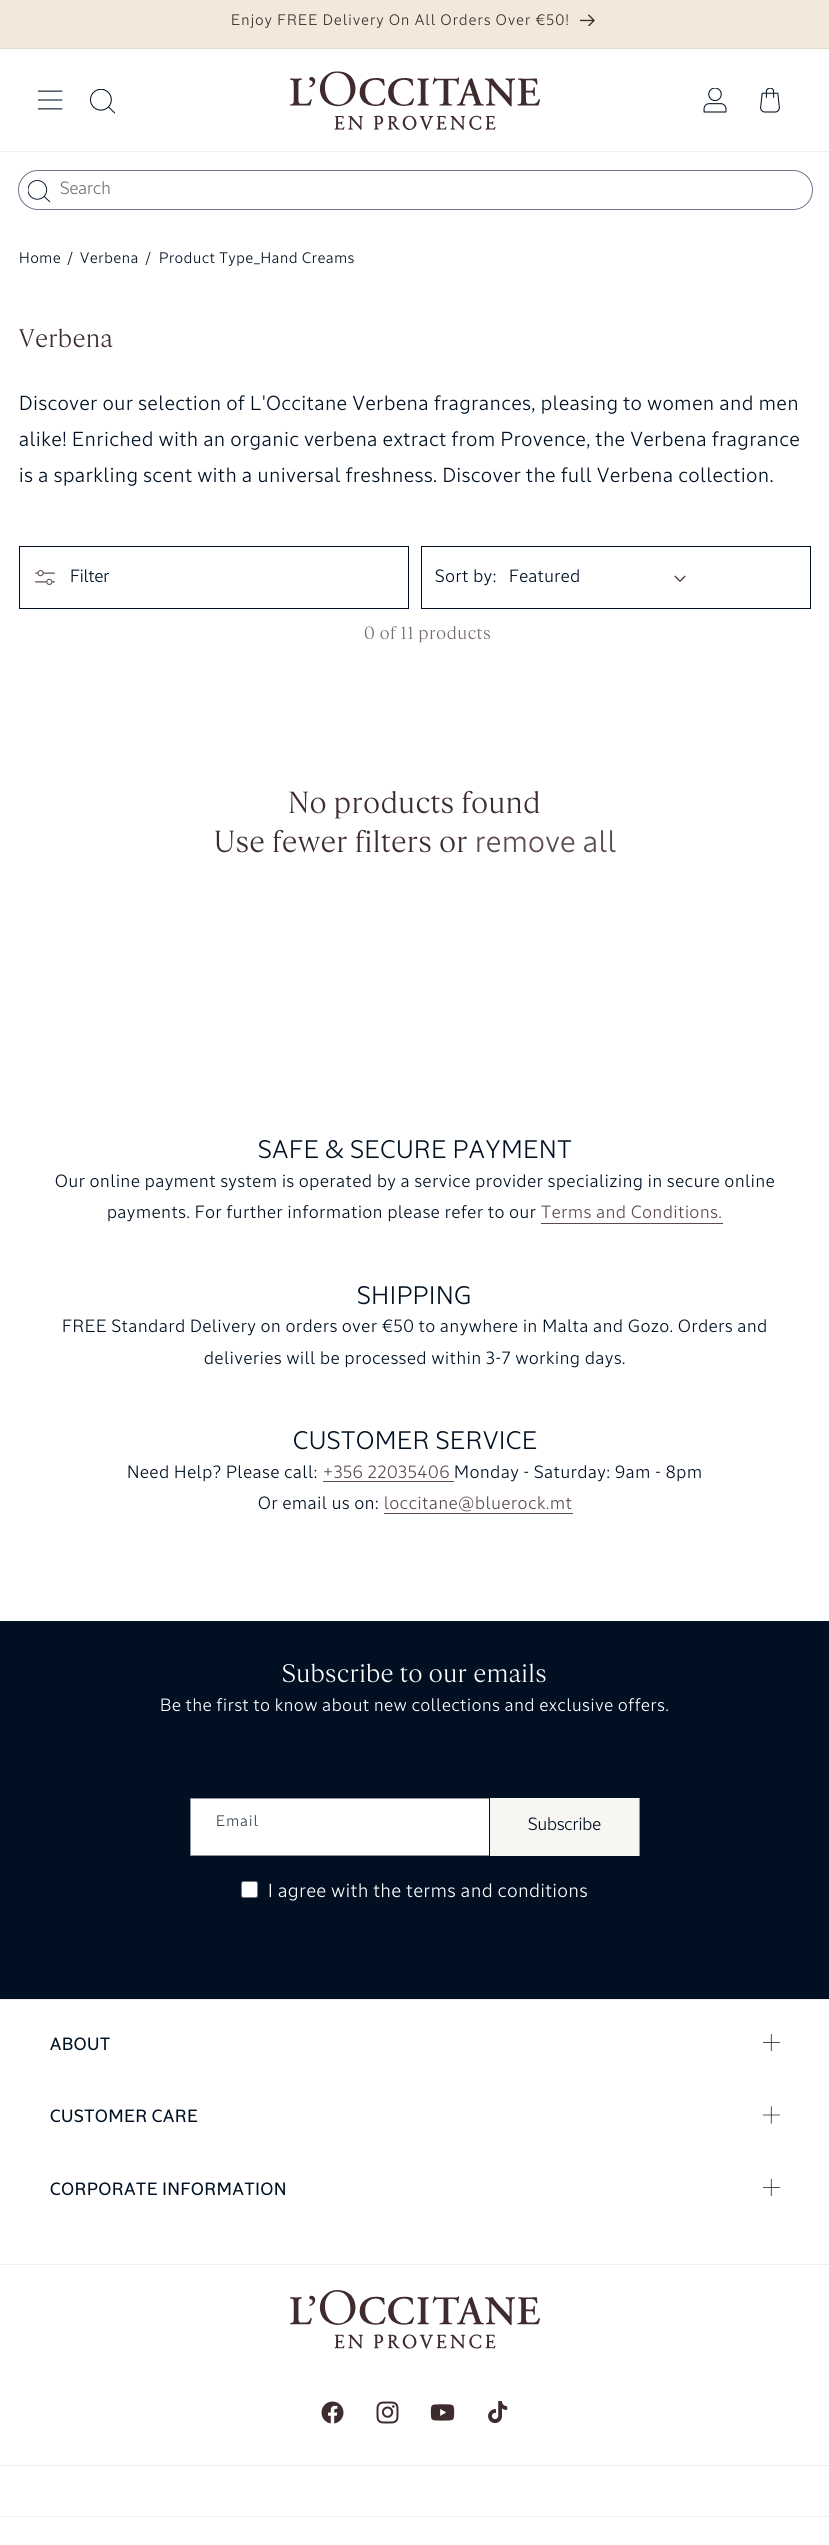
import math
import cairo



def draw_spaced(context, x, y, s, letter, word):
    context.move_to(x, y)
    for ch in s:
        context.show_text(ch)
        context.rel_move_to(letter + word * (ch == ' '), 0)


def rounded_rect(context, x, y, w, h, r):
    context.new_sub_path()
    for i, (u, v) in enumerate([(x + w - r, y + h - r), (x + r, y + h - r), (x + r, y + r), (x + w - r, y + r)]):
        context.arc(u, v, r, i * math.pi / 2, (i + 1) * math.pi / 2)
    context.close_path()


def draw_image(context, path, x, y, w, h):
    context.save()
    context.set_source_surface(cairo.ImageSurface.create_from_png(path), x, y)
    context.rectangle(x, y, w, h)
    context.fill()
    context.restore()


def draw(context):
    context.set_source_rgb(1, 1, 1)
    context.paint()
    context.set_source_rgb(242 / 255, 233 / 255, 219 / 255)
    context.rectangle(0, 0, 829, 48)
    context.fill()
    context.set_source_rgb(228 / 255, 218 / 255, 205 / 255)
    context.rectangle(0, 48, 829, 1)
    context.fill()
    draw_image(context, "images/1.png", 580, 14, 15, 12)
    context.set_source_rgb(240 / 255, 238 / 255, 238 / 255)
    context.rectangle(0, 151, 829, 1)
    context.fill()
    draw_image(context, "images/2.png", 38, 90, 25, 20)
    draw_image(context, "images/3.png", 90, 89, 25, 25)
    draw_image(context, "images/4.png", 290, 71, 250, 59)
    draw_image(context, "images/5.png", 703, 88, 24, 25)
    draw_image(context, "images/6.png", 760, 88, 20, 25)
    rounded_rect(context, 18.5, 170.5, 794, 39, 19.5)
    context.set_source_rgb(115 / 255, 116 / 255, 139 / 255)
    context.set_line_width(1)
    context.stroke()
    draw_image(context, "images/7.png", 28, 180, 22, 23)
    context.rectangle(19.5, 546.5, 389, 62)
    context.set_source_rgb(0, 16 / 255, 34 / 255)
    context.stroke()
    draw_image(context, "images/8.png", 35, 570, 20, 15)
    context.rectangle(421.5, 546.5, 389, 62)
    context.stroke()
    draw_image(context, "images/9.png", 674, 575, 12, 7)
    context.set_source_rgb(91 / 255, 75 / 255, 77 / 255)
    context.rectangle(541, 1223, 182, 1)
    context.fill()
    context.rectangle(323, 1481, 131, 1)
    context.fill()
    context.rectangle(384, 1513, 189, 1)
    context.fill()
    context.set_source_rgb(0, 16 / 255, 34 / 255)
    context.rectangle(0, 1621, 829, 378)
    context.fill()
    context.set_source_rgb(1, 1, 1)
    context.rectangle(191, 1799, 298, 56)
    context.fill()
    context.rectangle(190.5, 1798.5, 449, 57)
    context.set_source_rgb(140 / 255, 147 / 255, 156 / 255)
    context.stroke()
    context.set_source_rgb(247 / 255, 246 / 255, 243 / 255)
    context.rectangle(490, 1798, 149, 58)
    context.fill()
    context.set_source_rgb(0, 16 / 255, 34 / 255)
    context.rectangle(489, 1798, 1, 58)
    context.fill()
    context.set_source_rgb(1, 1, 1)
    rounded_rect(context, 241.5, 1881.5, 16, 16, 2)
    context.fill_preserve()
    context.set_source_rgb(118 / 255, 118 / 255, 118 / 255)
    context.stroke()
    context.set_source_rgb(240 / 255, 238 / 255, 238 / 255)
    context.rectangle(0, 1999, 829, 1)
    context.fill()
    draw_image(context, "images/10.png", 763, 2034, 17, 17)
    draw_image(context, "images/11.png", 763, 2106, 17, 18)
    draw_image(context, "images/10.png", 763, 2179, 17, 17)
    context.rectangle(0, 2264, 829, 1)
    context.fill()
    draw_image(context, "images/12.png", 290, 2290, 250, 59)
    draw_image(context, "images/13.png", 321, 2401, 23, 23)
    draw_image(context, "images/14.png", 376, 2401, 23, 23)
    draw_image(context, "images/15.png", 430, 2404, 25, 17)
    draw_image(context, "images/16.png", 488, 2401, 20, 23)
    context.rectangle(0, 2465, 829, 1)
    context.fill()
    context.rectangle(0, 2516, 829, 1)
    context.fill()
    context.select_font_face("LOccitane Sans")
    context.set_font_size(15)
    context.set_source_rgb(62 / 255, 43 / 255, 46 / 255)
    draw_spaced(context, 231, 25, "Enjoy FREE Delivery On All Orders Over €50!", 1.25, 0)
    context.set_font_size(17.5)
    context.set_source_rgb(117 / 255, 117 / 255, 117 / 255)
    context.move_to(60, 194)
    context.show_text("Search")
    context.set_font_size(15)
    context.set_source_rgb(0, 16 / 255, 34 / 255)
    draw_spaced(context, 19, 263, "Home", 0.75, 0)
    draw_spaced(context, 67, 263, "/", 0.75, 0)
    draw_spaced(context, 80, 263, "Verbena", 0.75, 0)
    draw_spaced(context, 145, 263, "/", 0.75, 0)
    draw_spaced(context, 159, 263, "Product Type_Hand Creams", 0.75, 0)
    context.select_font_face("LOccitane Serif")
    context.set_font_size(25)
    context.set_source_rgb(62 / 255, 43 / 255, 46 / 255)
    draw_spaced(context, 19, 347, "Verbena", 0.75, 0)
    context.select_font_face("LOccitane Sans")
    context.set_font_size(20)
    context.set_source_rgb(0, 16 / 255, 34 / 255)
    draw_spaced(context, 19, 410, "Discover our selection of L'Occitane Verbena fragrances, pleasing to women and men", 0.75, 0)
    draw_spaced(context, 19, 446, "alike! Enriched with an organic verbena extract from Provence, the Verbena fragrance", 0.75, 0)
    draw_spaced(context, 19, 482, "is a sparkling scent with a universal freshness. Discover the full Verbena collection.", 0.75, 0)
    context.set_font_size(17.5)
    context.move_to(70, 582)
    context.show_text("Filter")
    draw_spaced(context, 435, 582, "Sort by:", 0.75, 0)
    draw_spaced(context, 509, 582, "Featured", 0.5, 0)
    context.select_font_face("LOccitane Serif")
    context.set_source_rgb(120 / 255, 107 / 255, 109 / 255)
    draw_spaced(context, 364, 639, "0 of 11 products", 0.75, 0)
    context.set_font_size(30)
    context.set_source_rgb(62 / 255, 43 / 255, 46 / 255)
    draw_spaced(context, 288, 813, "No products found", 0.75, 0)
    draw_spaced(context, 214, 852, "Use fewer filters or", 0.75, 0)
    context.select_font_face("LOccitane Sans")
    context.set_source_rgb(91 / 255, 75 / 255, 77 / 255)
    draw_spaced(context, 475, 852, "remove all", 0.75, 0)
    context.set_font_size(25)
    context.set_source_rgb(0, 16 / 255, 34 / 255)
    draw_spaced(context, 258, 1158, "SAFE & SECURE PAYMENT", 0.75, 0)
    context.set_font_size(17.5)
    draw_spaced(context, 55, 1187, "Our online payment system is operated by a service provider specializing in secure online", 0.75, 0)
    draw_spaced(context, 107, 1218, "payments. For further information please refer to our", 0.75, 0)
    context.set_source_rgb(91 / 255, 75 / 255, 77 / 255)
    draw_spaced(context, 541, 1218, "Terms and Conditions.", 0.75, 0)
    context.set_font_size(25)
    context.set_source_rgb(0, 16 / 255, 34 / 255)
    draw_spaced(context, 357, 1304, "SHIPPING", 0.75, 0)
    context.set_font_size(17.5)
    draw_spaced(context, 62, 1332, "FREE Standard Delivery on orders over €50 to anywhere in Malta and Gozo. Orders and", 0.75, 0)
    draw_spaced(context, 204, 1364, "deliveries will be processed within 3-7 working days.", 0.75, 0)
    context.set_font_size(25)
    draw_spaced(context, 293, 1449, "CUSTOMER SERVICE", 0.75, 0)
    context.set_font_size(17.5)
    draw_spaced(context, 127, 1478, "Need Help? Please call:", 0.75, 0)
    context.set_source_rgb(91 / 255, 75 / 255, 77 / 255)
    draw_spaced(context, 323, 1478, "+356 22035406", 0.75, 0)
    context.set_source_rgb(0, 16 / 255, 34 / 255)
    draw_spaced(context, 454, 1478, "Monday - Saturday: 9am - 8pm", 0.75, 0)
    draw_spaced(context, 258, 1509, "Or email us on:", 0.75, 0)
    context.set_source_rgb(91 / 255, 75 / 255, 77 / 255)
    draw_spaced(context, 384, 1509, "loccitane@bluerock.mt", 0.75, 0)
    context.select_font_face("LOccitane Serif")
    context.set_font_size(25)
    context.set_source_rgb(1, 1, 1)
    draw_spaced(context, 282, 1682, "Subscribe to our emails", 0.75, 0)
    context.select_font_face("LOccitane Sans")
    context.set_font_size(17.5)
    draw_spaced(context, 160, 1711, "Be the first to know about new collections and exclusive offers.", 0.75, 0)
    context.set_font_size(15)
    context.set_source_rgb(51 / 255, 64 / 255, 78 / 255)
    draw_spaced(context, 216, 1826, "Email", 1.25, 0)
    context.set_font_size(17.5)
    context.set_source_rgb(0, 16 / 255, 34 / 255)
    context.move_to(528, 1830)
    context.show_text("Subscribe")
    context.set_font_size(18.75)
    context.set_source_rgb(1, 1, 1)
    draw_spaced(context, 268, 1897, "I agree with the terms and conditions", 0.75, 0)
    context.select_font_face("LOccitane Sans Medium")
    context.set_font_size(17.5)
    context.set_source_rgb(0, 16 / 255, 34 / 255)
    draw_spaced(context, 50, 2050, "ABOUT", 0.75, 0)
    draw_spaced(context, 50, 2122, "CUSTOMER CARE", 0.75, 0)
    draw_spaced(context, 50, 2195, "CORPORATE INFORMATION", 0.75, 0)


surface = cairo.ImageSurface(cairo.Format.RGB24, 829, 2545)
context = cairo.Context(surface)
options = cairo.FontOptions()
options.set_hint_metrics(cairo.HintMetrics.OFF)
options.set_hint_style(cairo.HintStyle.NONE)
context.set_font_options(options)
context.set_miter_limit(4)
draw(context)
surface.write_to_png("out.png")
